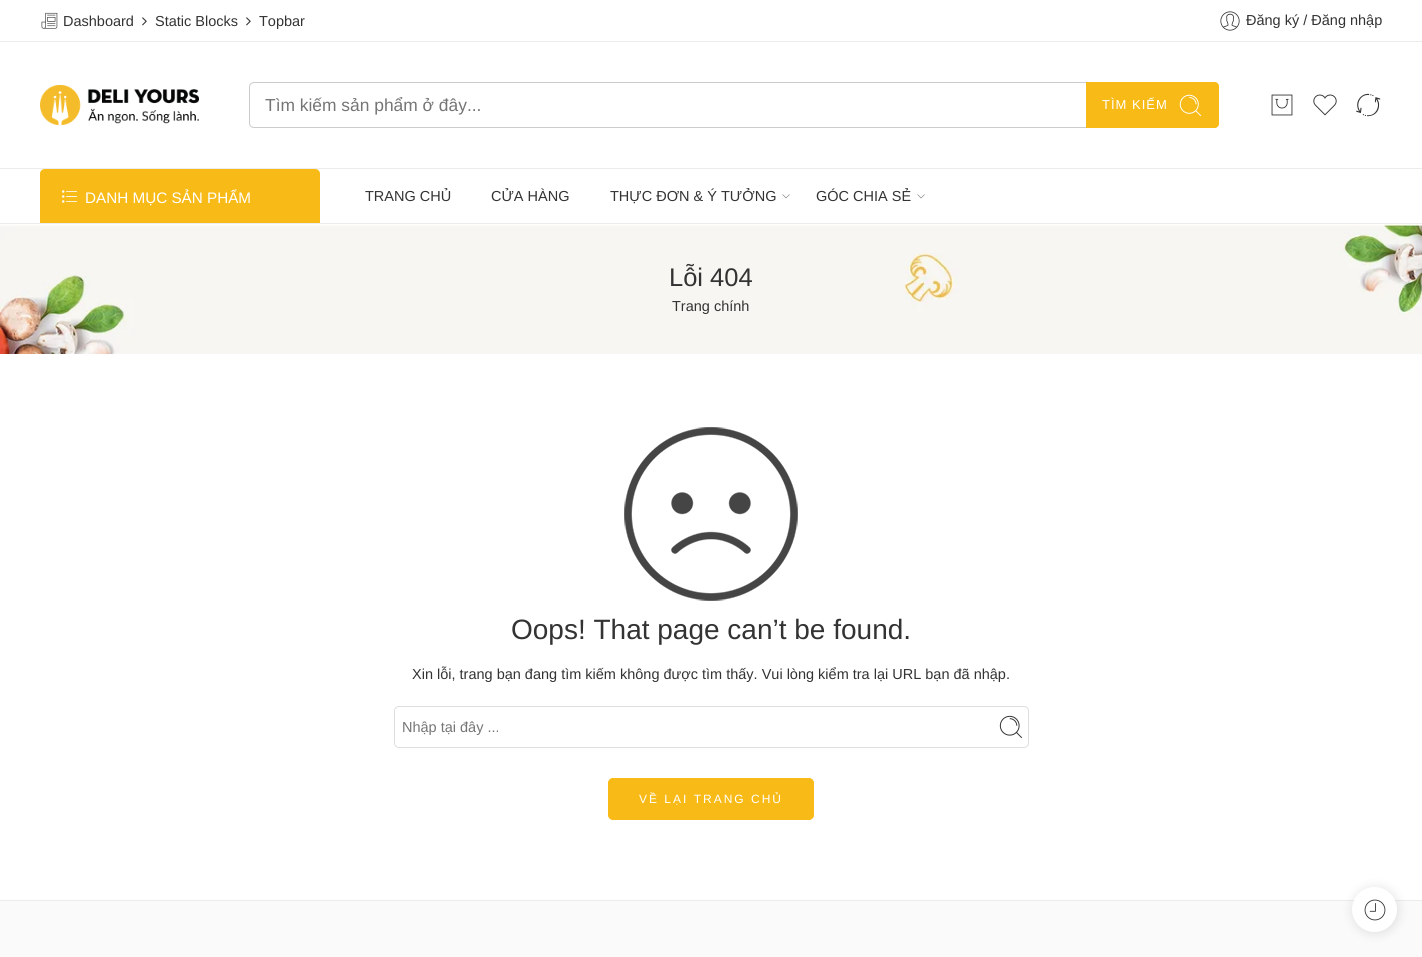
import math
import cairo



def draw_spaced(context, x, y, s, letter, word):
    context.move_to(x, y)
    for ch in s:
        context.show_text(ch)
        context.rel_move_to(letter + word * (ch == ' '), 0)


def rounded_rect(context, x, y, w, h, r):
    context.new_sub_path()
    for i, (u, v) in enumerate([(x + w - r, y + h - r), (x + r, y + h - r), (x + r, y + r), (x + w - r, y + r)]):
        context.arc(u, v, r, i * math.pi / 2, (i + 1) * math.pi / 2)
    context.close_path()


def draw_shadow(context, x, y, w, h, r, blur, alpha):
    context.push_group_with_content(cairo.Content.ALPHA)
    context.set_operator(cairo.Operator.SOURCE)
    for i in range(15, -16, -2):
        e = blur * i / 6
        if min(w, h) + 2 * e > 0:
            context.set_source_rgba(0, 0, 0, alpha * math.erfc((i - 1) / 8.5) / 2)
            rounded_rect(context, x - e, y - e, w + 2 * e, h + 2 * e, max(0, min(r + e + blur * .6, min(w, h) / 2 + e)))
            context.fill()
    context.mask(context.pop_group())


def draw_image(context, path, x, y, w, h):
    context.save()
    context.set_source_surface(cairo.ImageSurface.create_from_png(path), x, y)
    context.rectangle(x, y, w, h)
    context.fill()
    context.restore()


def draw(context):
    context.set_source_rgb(1, 1, 1)
    context.paint()
    context.set_source_rgb(236 / 255, 236 / 255, 236 / 255)
    context.rectangle(0, 41, 1422, 1)
    context.fill()
    draw_image(context, "images/1.png", 41, 12, 17, 17)
    draw_image(context, "images/2.png", 142, 17, 5, 9)
    draw_image(context, "images/2.png", 246, 17, 5, 9)
    draw_image(context, "images/3.png", 1220, 11, 20, 20)
    draw_image(context, "images/4.png", 40, 85, 159, 40)
    rounded_rect(context, 249.5, 82.5, 968, 45, 4.5)
    context.set_source_rgb(204 / 255, 204 / 255, 204 / 255)
    context.set_line_width(1)
    context.stroke()
    context.save()
    context.new_path()
    context.move_to(1086, 82)
    context.line_to(1215, 82)
    context.curve_to(1217, 82, 1219, 84, 1219, 86)
    context.line_to(1219, 124)
    context.curve_to(1219, 126, 1217, 128, 1215, 128)
    context.line_to(1086, 128)
    context.close_path()
    context.clip()
    context.set_source_rgb(248 / 255, 186 / 255, 22 / 255)
    context.new_path()
    context.move_to(1086, 82)
    context.line_to(1214, 82)
    context.curve_to(1217, 82, 1219, 84, 1219, 87)
    context.line_to(1219, 123)
    context.curve_to(1219, 126, 1217, 128, 1214, 128)
    context.line_to(1086, 128)
    context.close_path()
    context.fill()
    context.restore()
    context.new_path()
    context.move_to(1086.5, 82.5)
    context.line_to(1214, 82.5)
    context.curve_to(1216.5, 82.5, 1218.5, 84.5, 1218.5, 87)
    context.line_to(1218.5, 123)
    context.curve_to(1218.5, 125.5, 1216.5, 127.5, 1214, 127.5)
    context.line_to(1086.5, 127.5)
    context.close_path()
    context.set_source_rgb(248 / 255, 186 / 255, 22 / 255)
    context.stroke()
    draw_image(context, "images/5.png", 1179, 94, 23, 23)
    draw_image(context, "images/6.png", 1271, 94, 22, 22)
    draw_image(context, "images/7.png", 1313, 94, 24, 22)
    draw_image(context, "images/8.png", 1356, 93, 25, 24)
    context.set_source_rgb(236 / 255, 236 / 255, 236 / 255)
    context.rectangle(0, 168, 1422, 1)
    context.fill()
    context.rectangle(0, 223, 1422, 1)
    context.fill()
    context.set_source_rgb(248 / 255, 186 / 255, 22 / 255)
    context.new_path()
    context.move_to(45, 169)
    context.line_to(315, 169)
    context.curve_to(318, 169, 320, 171, 320, 174)
    context.line_to(320, 223)
    context.line_to(40, 223)
    context.line_to(40, 174)
    context.curve_to(40, 171, 42, 169, 45, 169)
    context.close_path()
    context.fill()
    draw_image(context, "images/9.png", 62, 190, 15, 13)
    draw_image(context, "images/10.png", 782, 194, 8, 5)
    draw_image(context, "images/10.png", 917, 194, 8, 5)
    draw_image(context, "images/11.png", 0, 224, 1422, 130)
    draw_image(context, "images/12.png", 624, 427, 174, 174)
    rounded_rect(context, 394.5, 706.5, 634, 41, 4.5)
    context.set_source_rgb(222 / 255, 222 / 255, 222 / 255)
    context.stroke()
    draw_image(context, "images/13.png", 999, 715, 24, 24)
    context.set_source_rgb(248 / 255, 186 / 255, 22 / 255)
    rounded_rect(context, 608.5, 778.5, 205, 41, 4.5)
    context.fill_preserve()
    context.stroke()
    context.set_source_rgb(250 / 255, 250 / 255, 250 / 255)
    context.rectangle(0, 901, 1422, 56)
    context.fill()
    context.set_source_rgb(236 / 255, 236 / 255, 236 / 255)
    context.rectangle(0, 900, 1422, 1)
    context.fill()
    context.set_source_rgb(0, 0, 0)
    draw_shadow(context, 1352, 887, 47, 47, 23.5, 5, 0.1)
    context.set_source_rgb(1, 1, 1)
    context.arc(1374.5, 909.5, 22.5, 0, 2 * math.pi)
    context.fill()
    draw_image(context, "images/14.png", 1364, 899, 22, 22)
    context.select_font_face("Liberation Sans")
    context.set_font_size(14.5)
    context.set_source_rgb(51 / 255, 51 / 255, 51 / 255)
    context.move_to(63, 26)
    context.show_text("Dashboard")
    context.move_to(155, 26)
    context.show_text("Static Blocks")
    context.move_to(259, 26)
    context.show_text("Topbar")
    context.move_to(1246, 25)
    context.show_text("Đăng ký / Đăng nhập")
    context.set_font_size(17.4)
    context.set_source_rgb(117 / 255, 117 / 255, 117 / 255)
    context.move_to(265, 111)
    context.show_text("Tìm kiếm sản phẩm ở đây...")
    context.set_font_size(13)
    context.set_source_rgb(1, 1, 1)
    draw_spaced(context, 1102, 109, "TÌM KIẾM", 1, 0)
    context.set_font_size(15.25)
    context.move_to(85, 203)
    context.show_text("DANH MỤC SẢN PHẨM")
    context.set_font_size(14.5)
    context.set_source_rgb(51 / 255, 51 / 255, 51 / 255)
    context.move_to(365, 201)
    context.show_text("TRANG CHỦ")
    context.move_to(491, 201)
    context.show_text("CỬA HÀNG")
    context.move_to(610, 201)
    context.show_text("THỰC ĐƠN & Ý TƯỞNG")
    context.move_to(816, 201)
    context.show_text("GÓC CHIA SẺ")
    context.set_font_size(25.5)
    context.move_to(669, 286)
    context.show_text("Lỗi 404")
    context.set_font_size(14.5)
    context.move_to(672, 311)
    context.show_text("Trang chính")
    context.set_font_size(28)
    context.move_to(511, 639)
    context.show_text("Oops! That page can’t be found.")
    context.set_font_size(14.5)
    context.move_to(412, 679)
    context.show_text("Xin lỗi, trang bạn đang tìm kiếm không được tìm thấy. Vui lòng kiểm tra lại URL bạn đã nhập.")
    context.set_source_rgb(117 / 255, 117 / 255, 117 / 255)
    context.move_to(402, 732)
    context.show_text("Nhập tại đây ...")
    context.set_font_size(12)
    context.set_source_rgb(1, 1, 1)
    draw_spaced(context, 639, 803, "VỀ LẠI TRANG CHỦ", 2, 0)


surface = cairo.ImageSurface(cairo.Format.RGB24, 1422, 957)
context = cairo.Context(surface)
options = cairo.FontOptions()
options.set_hint_metrics(cairo.HintMetrics.OFF)
options.set_hint_style(cairo.HintStyle.NONE)
context.set_font_options(options)
context.set_miter_limit(4)
draw(context)
surface.write_to_png("out.png")
